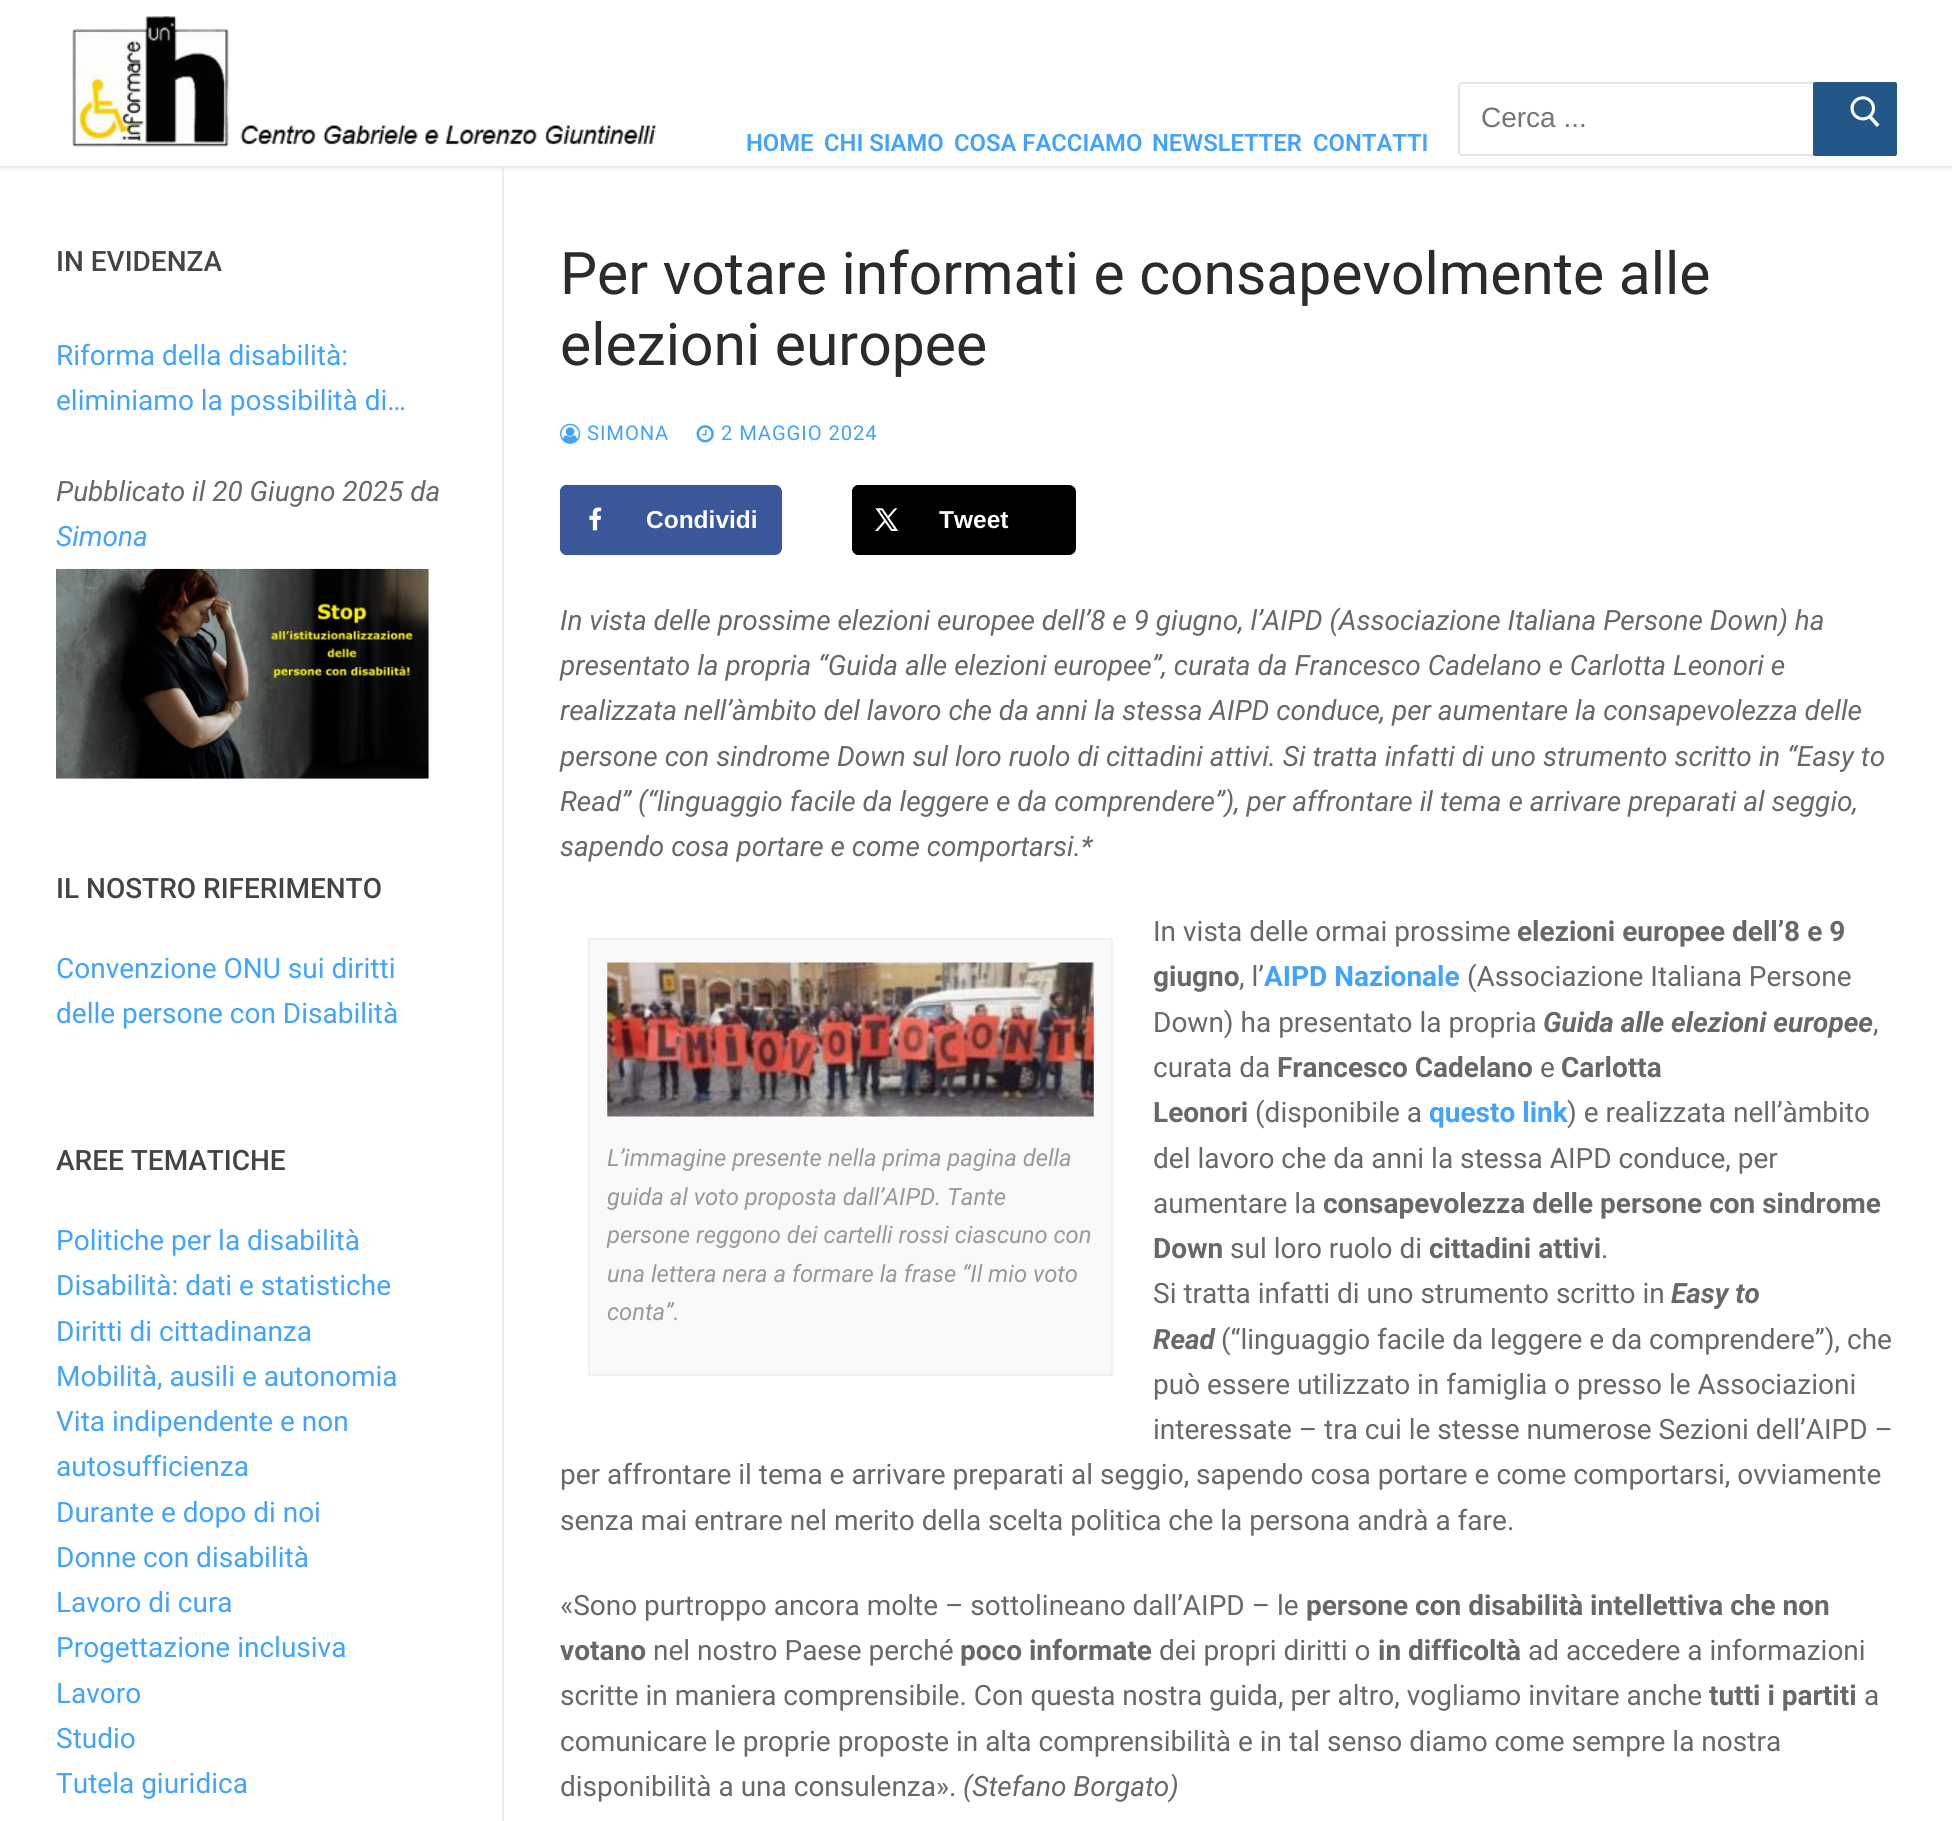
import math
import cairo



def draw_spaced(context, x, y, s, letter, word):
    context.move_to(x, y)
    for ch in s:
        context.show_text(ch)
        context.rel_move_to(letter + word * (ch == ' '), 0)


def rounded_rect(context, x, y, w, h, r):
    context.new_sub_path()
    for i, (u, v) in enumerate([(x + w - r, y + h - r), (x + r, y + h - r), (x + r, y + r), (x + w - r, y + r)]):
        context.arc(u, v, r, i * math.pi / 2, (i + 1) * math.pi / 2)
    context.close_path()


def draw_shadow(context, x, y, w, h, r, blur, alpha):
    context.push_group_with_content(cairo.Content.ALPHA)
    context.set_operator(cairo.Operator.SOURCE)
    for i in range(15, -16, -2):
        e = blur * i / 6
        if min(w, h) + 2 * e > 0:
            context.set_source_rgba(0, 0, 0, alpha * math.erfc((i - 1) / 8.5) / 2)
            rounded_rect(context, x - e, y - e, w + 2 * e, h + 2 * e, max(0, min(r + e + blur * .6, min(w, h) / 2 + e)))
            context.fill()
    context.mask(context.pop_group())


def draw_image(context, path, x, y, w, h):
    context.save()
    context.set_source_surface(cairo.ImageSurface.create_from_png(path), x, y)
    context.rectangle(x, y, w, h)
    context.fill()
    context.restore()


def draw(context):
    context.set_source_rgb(1, 1, 1)
    context.paint()
    context.set_source_rgb(234 / 255, 236 / 255, 238 / 255)
    context.rectangle(502, 166, 2, 1655)
    context.fill()
    context.save()
    context.rectangle(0, 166, 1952, 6)
    context.clip()
    context.set_source_rgb(225 / 255, 229 / 255, 234 / 255)
    draw_shadow(context, 0, 2, 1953, 166, 0, 2, 1)
    context.restore()
    draw_image(context, "images/1.png", 72, 16, 584, 131)
    rounded_rect(context, 1459, 83, 423, 72, 3)
    context.set_source_rgb(229 / 255, 229 / 255, 229 / 255)
    context.stroke()
    context.set_source_rgb(35 / 255, 87 / 255, 135 / 255)
    rounded_rect(context, 1813, 82, 84, 74, 2)
    context.fill()
    draw_image(context, "images/2.png", 1850, 96, 30, 31)
    draw_image(context, "images/3.png", 56, 568, 373, 211)
    draw_image(context, "images/4.png", 560, 423, 21, 21)
    draw_image(context, "images/5.png", 696, 425, 18, 18)
    context.set_source_rgb(58 / 255, 87 / 255, 154 / 255)
    rounded_rect(context, 562, 487, 218, 66, 5)
    context.fill_preserve()
    context.set_line_width(4)
    context.stroke()
    context.new_path()
    context.move_to(567, 487)
    context.line_to(628, 487)
    context.line_to(628, 553)
    context.line_to(567, 553)
    context.curve_to(564, 553, 562, 551, 562, 548)
    context.line_to(562, 492)
    context.curve_to(562, 489, 564, 487, 567, 487)
    context.close_path()
    context.fill_preserve()
    context.stroke()
    draw_image(context, "images/6.png", 589, 507, 13, 24)
    context.set_source_rgb(0, 0, 0)
    rounded_rect(context, 854, 487, 220, 66, 5)
    context.fill_preserve()
    context.stroke()
    context.new_path()
    context.move_to(859, 487)
    context.line_to(920, 487)
    context.line_to(920, 553)
    context.line_to(859, 553)
    context.curve_to(856, 553, 854, 551, 854, 548)
    context.line_to(854, 492)
    context.curve_to(854, 489, 856, 487, 859, 487)
    context.close_path()
    context.fill_preserve()
    context.stroke()
    draw_image(context, "images/7.png", 875, 508, 24, 23)
    context.set_source_rgb(249 / 255, 249 / 255, 249 / 255)
    context.rectangle(589, 939, 523, 436)
    context.fill_preserve()
    context.set_source_rgb(240 / 255, 240 / 255, 240 / 255)
    context.set_line_width(2)
    context.stroke()
    draw_image(context, "images/8.png", 607, 962, 487, 155)
    context.select_font_face("Liberation Sans")
    context.set_font_size(28)
    context.set_source_rgb(117 / 255, 117 / 255, 117 / 255)
    context.move_to(1481, 127)
    context.show_text("Cerca ...")
    context.select_font_face("Roboto SemiBold")
    context.set_font_size(23.8)
    context.set_source_rgb(66 / 255, 163 / 255, 253 / 255)
    context.move_to(746, 151)
    context.show_text("HOME")
    context.move_to(824, 151)
    context.show_text("CHI SIAMO")
    context.move_to(954, 151)
    context.show_text("COSA FACCIAMO")
    context.move_to(1152, 151)
    context.show_text("NEWSLETTER")
    context.move_to(1313, 151)
    context.show_text("CONTATTI")
    context.select_font_face("Roboto Medium")
    context.set_font_size(28)
    context.set_source_rgb(68 / 255, 68 / 255, 68 / 255)
    context.move_to(56, 271)
    context.show_text("IN EVIDENZA")
    context.select_font_face("Roboto")
    context.set_source_rgb(66 / 255, 163 / 255, 253 / 255)
    context.move_to(56, 365)
    context.show_text("Riforma della disabilità:")
    context.move_to(56, 410)
    context.show_text("eliminiamo la possibilità di…")
    context.select_font_face("Roboto", cairo.FontSlant.ITALIC)
    context.set_source_rgb(104 / 255, 104 / 255, 104 / 255)
    context.move_to(56, 501)
    context.show_text("Pubblicato il 20 Giugno 2025 da")
    context.set_source_rgb(66 / 255, 163 / 255, 253 / 255)
    context.move_to(56, 546)
    context.show_text("Simona")
    context.select_font_face("Roboto Medium")
    context.set_source_rgb(68 / 255, 68 / 255, 68 / 255)
    context.move_to(56, 898)
    context.show_text("IL NOSTRO RIFERIMENTO")
    context.select_font_face("Roboto")
    context.set_source_rgb(66 / 255, 163 / 255, 253 / 255)
    context.move_to(56, 978)
    context.show_text("Convenzione ONU sui diritti")
    context.move_to(56, 1023)
    context.show_text("delle persone con Disabilità")
    context.select_font_face("Roboto Medium")
    context.set_source_rgb(68 / 255, 68 / 255, 68 / 255)
    context.move_to(56, 1170)
    context.show_text("AREE TEMATICHE")
    context.select_font_face("Roboto")
    context.set_source_rgb(66 / 255, 163 / 255, 253 / 255)
    context.move_to(56, 1250)
    context.show_text("Politiche per la disabilità")
    context.move_to(56, 1295)
    context.show_text("Disabilità: dati e statistiche")
    context.move_to(56, 1341)
    context.show_text("Diritti di cittadinanza")
    context.move_to(56, 1386)
    context.show_text("Mobilità, ausili e autonomia")
    context.move_to(56, 1431)
    context.show_text("Vita indipendente e non")
    context.move_to(56, 1476)
    context.show_text("autosufficienza")
    context.move_to(56, 1522)
    context.show_text("Durante e dopo di noi")
    context.move_to(56, 1567)
    context.show_text("Donne con disabilità")
    context.move_to(56, 1612)
    context.show_text("Lavoro di cura")
    context.move_to(56, 1657)
    context.show_text("Progettazione inclusiva")
    context.move_to(56, 1703)
    context.show_text("Lavoro")
    context.move_to(56, 1748)
    context.show_text("Studio")
    context.move_to(56, 1793)
    context.show_text("Tutela giuridica")
    context.set_font_size(58.75)
    context.set_source_rgb(43 / 255, 43 / 255, 43 / 255)
    context.move_to(560, 294)
    context.show_text("Per votare informati e consapevolmente alle")
    context.move_to(560, 365)
    context.show_text("elezioni europee")
    context.set_font_size(20.25)
    context.set_source_rgb(66 / 255, 163 / 255, 253 / 255)
    draw_spaced(context, 587, 440, "SIMONA", 0.9, 0)
    draw_spaced(context, 721, 440, "2 MAGGIO 2024", 0.9, 0)
    context.select_font_face("Liberation Sans", cairo.FontSlant.NORMAL, cairo.FontWeight.BOLD)
    context.set_font_size(24.5)
    context.set_source_rgb(1, 1, 1)
    context.move_to(646, 528)
    context.show_text("Condividi")
    context.move_to(939, 528)
    context.show_text("Tweet")
    context.select_font_face("Roboto", cairo.FontSlant.ITALIC)
    context.set_font_size(28)
    context.set_source_rgb(104 / 255, 104 / 255, 104 / 255)
    context.move_to(560, 630)
    context.show_text("In vista delle prossime elezioni europee dell’8 e 9 giugno, l’AIPD (Associazione Italiana Persone Down) ha")
    context.move_to(560, 675)
    context.show_text("presentato la propria “Guida alle elezioni europee”, curata da Francesco Cadelano e Carlotta Leonori e")
    context.move_to(560, 720)
    context.show_text("realizzata nell’àmbito del lavoro che da anni la stessa AIPD conduce, per aumentare la consapevolezza delle")
    context.move_to(560, 766)
    context.show_text("persone con sindrome Down sul loro ruolo di cittadini attivi. Si tratta infatti di uno strumento scritto in “Easy to")
    context.move_to(560, 811)
    context.show_text("Read” (“linguaggio facile da leggere e da comprendere”), per affrontare il tema e arrivare preparati al seggio,")
    context.move_to(560, 856)
    context.show_text("sapendo cosa portare e come comportarsi.*")
    context.select_font_face("Roboto")
    context.move_to(1153, 941)
    context.show_text("In vista delle ormai prossime")
    context.select_font_face("Roboto", cairo.FontSlant.NORMAL, cairo.FontWeight.BOLD)
    context.move_to(1517, 941)
    context.show_text("elezioni europee dell’8 e 9")
    context.move_to(1153, 986)
    context.show_text("giugno")
    context.select_font_face("Roboto")
    context.move_to(1239, 986)
    context.show_text(", l’")
    context.select_font_face("Roboto", cairo.FontSlant.NORMAL, cairo.FontWeight.BOLD)
    context.set_source_rgb(66 / 255, 163 / 255, 253 / 255)
    context.move_to(1264, 986)
    context.show_text("AIPD Nazionale")
    context.select_font_face("Roboto")
    context.set_source_rgb(104 / 255, 104 / 255, 104 / 255)
    context.move_to(1467, 986)
    context.show_text("(Associazione Italiana Persone")
    context.move_to(1153, 1032)
    context.show_text("Down) ha presentato la propria")
    context.select_font_face("Roboto", cairo.FontSlant.ITALIC, cairo.FontWeight.BOLD)
    context.move_to(1543, 1032)
    context.show_text("Guida alle elezioni europee")
    context.select_font_face("Roboto")
    context.move_to(1873, 1032)
    context.show_text(",")
    context.move_to(1153, 1077)
    context.show_text("curata da")
    context.select_font_face("Roboto", cairo.FontSlant.NORMAL, cairo.FontWeight.BOLD)
    context.move_to(1277, 1077)
    context.show_text("Francesco Cadelano")
    context.select_font_face("Roboto")
    context.move_to(1540, 1077)
    context.show_text("e")
    context.select_font_face("Roboto", cairo.FontSlant.NORMAL, cairo.FontWeight.BOLD)
    context.move_to(1561, 1077)
    context.show_text("Carlotta")
    context.move_to(1153, 1122)
    context.show_text("Leonori")
    context.select_font_face("Roboto")
    context.move_to(1255, 1122)
    context.show_text("(disponibile a")
    context.select_font_face("Roboto", cairo.FontSlant.NORMAL, cairo.FontWeight.BOLD)
    context.set_source_rgb(66 / 255, 163 / 255, 253 / 255)
    context.move_to(1429, 1122)
    context.show_text("questo link")
    context.select_font_face("Roboto")
    context.set_source_rgb(104 / 255, 104 / 255, 104 / 255)
    context.move_to(1567, 1122)
    context.show_text(") e realizzata nell’àmbito")
    context.move_to(1153, 1168)
    context.show_text("del lavoro che da anni la stessa AIPD conduce, per")
    context.move_to(1153, 1213)
    context.show_text("aumentare la")
    context.select_font_face("Roboto", cairo.FontSlant.NORMAL, cairo.FontWeight.BOLD)
    context.move_to(1323, 1213)
    context.show_text("consapevolezza delle persone con sindrome")
    context.move_to(1153, 1258)
    context.show_text("Down")
    context.select_font_face("Roboto")
    context.move_to(1230, 1258)
    context.show_text("sul loro ruolo di")
    context.select_font_face("Roboto", cairo.FontSlant.NORMAL, cairo.FontWeight.BOLD)
    context.move_to(1429, 1258)
    context.show_text("cittadini attivi")
    context.select_font_face("Roboto")
    context.move_to(1601, 1258)
    context.show_text(".")
    context.move_to(1153, 1303)
    context.show_text("Si tratta infatti di uno strumento scritto in")
    context.select_font_face("Roboto", cairo.FontSlant.ITALIC, cairo.FontWeight.BOLD)
    context.move_to(1671, 1303)
    context.show_text("Easy to")
    context.move_to(1153, 1349)
    context.show_text("Read")
    context.select_font_face("Roboto")
    context.move_to(1221, 1349)
    context.show_text("(“linguaggio facile da leggere e da comprendere”), che")
    context.move_to(1153, 1394)
    context.show_text("può essere utilizzato in famiglia o presso le Associazioni")
    context.move_to(1153, 1439)
    context.show_text("interessate – tra cui le stesse numerose Sezioni dell’AIPD –")
    context.move_to(560, 1484)
    context.show_text("per affrontare il tema e arrivare preparati al seggio, sapendo cosa portare e come comportarsi, ovviamente")
    context.move_to(560, 1530)
    context.show_text("senza mai entrare nel merito della scelta politica che la persona andrà a fare.")
    context.select_font_face("Roboto", cairo.FontSlant.ITALIC)
    context.set_font_size(23.8)
    context.set_source_rgb(153 / 255, 153 / 255, 153 / 255)
    context.move_to(607, 1166)
    context.show_text("L’immagine presente nella prima pagina della")
    context.move_to(607, 1205)
    context.show_text("guida al voto proposta dall’AIPD. Tante")
    context.move_to(607, 1243)
    context.show_text("persone reggono dei cartelli rossi ciascuno con")
    context.move_to(607, 1282)
    context.show_text("una lettera nera a formare la frase “Il mio voto")
    context.move_to(607, 1320)
    context.show_text("conta”.")
    context.select_font_face("Roboto")
    context.set_font_size(28)
    context.set_source_rgb(104 / 255, 104 / 255, 104 / 255)
    context.move_to(560, 1615)
    context.show_text("«Sono purtroppo ancora molte – sottolineano dall’AIPD – le")
    context.select_font_face("Roboto", cairo.FontSlant.NORMAL, cairo.FontWeight.BOLD)
    context.move_to(1306, 1615)
    context.show_text("persone con disabilità intellettiva che non")
    context.move_to(560, 1660)
    context.show_text("votano")
    context.select_font_face("Roboto")
    context.move_to(653, 1660)
    context.show_text("nel nostro Paese perché")
    context.select_font_face("Roboto", cairo.FontSlant.NORMAL, cairo.FontWeight.BOLD)
    context.move_to(960, 1660)
    context.show_text("poco informate")
    context.select_font_face("Roboto")
    context.move_to(1159, 1660)
    context.show_text("dei propri diritti o")
    context.select_font_face("Roboto", cairo.FontSlant.NORMAL, cairo.FontWeight.BOLD)
    context.move_to(1378, 1660)
    context.show_text("in difficoltà")
    context.select_font_face("Roboto")
    context.move_to(1528, 1660)
    context.show_text("ad accedere a informazioni")
    context.move_to(560, 1705)
    context.show_text("scritte in maniera comprensibile. Con questa nostra guida, per altro, vogliamo invitare anche")
    context.select_font_face("Roboto", cairo.FontSlant.NORMAL, cairo.FontWeight.BOLD)
    context.move_to(1709, 1705)
    context.show_text("tutti i partiti")
    context.select_font_face("Roboto")
    context.move_to(1864, 1705)
    context.show_text("a")
    context.move_to(560, 1751)
    context.show_text("comunicare le proprie proposte in alta comprensibilità e in tal senso diamo come sempre la nostra")
    context.move_to(560, 1796)
    context.show_text("disponibilità a una consulenza».")
    context.select_font_face("Roboto", cairo.FontSlant.ITALIC)
    context.move_to(963, 1796)
    context.show_text("(Stefano Borgato)")


surface = cairo.ImageSurface(cairo.Format.RGB24, 1952, 1821)
context = cairo.Context(surface)
options = cairo.FontOptions()
options.set_hint_metrics(cairo.HintMetrics.OFF)
options.set_hint_style(cairo.HintStyle.NONE)
context.set_font_options(options)
context.set_miter_limit(4)
draw(context)
surface.write_to_png("out.png")
